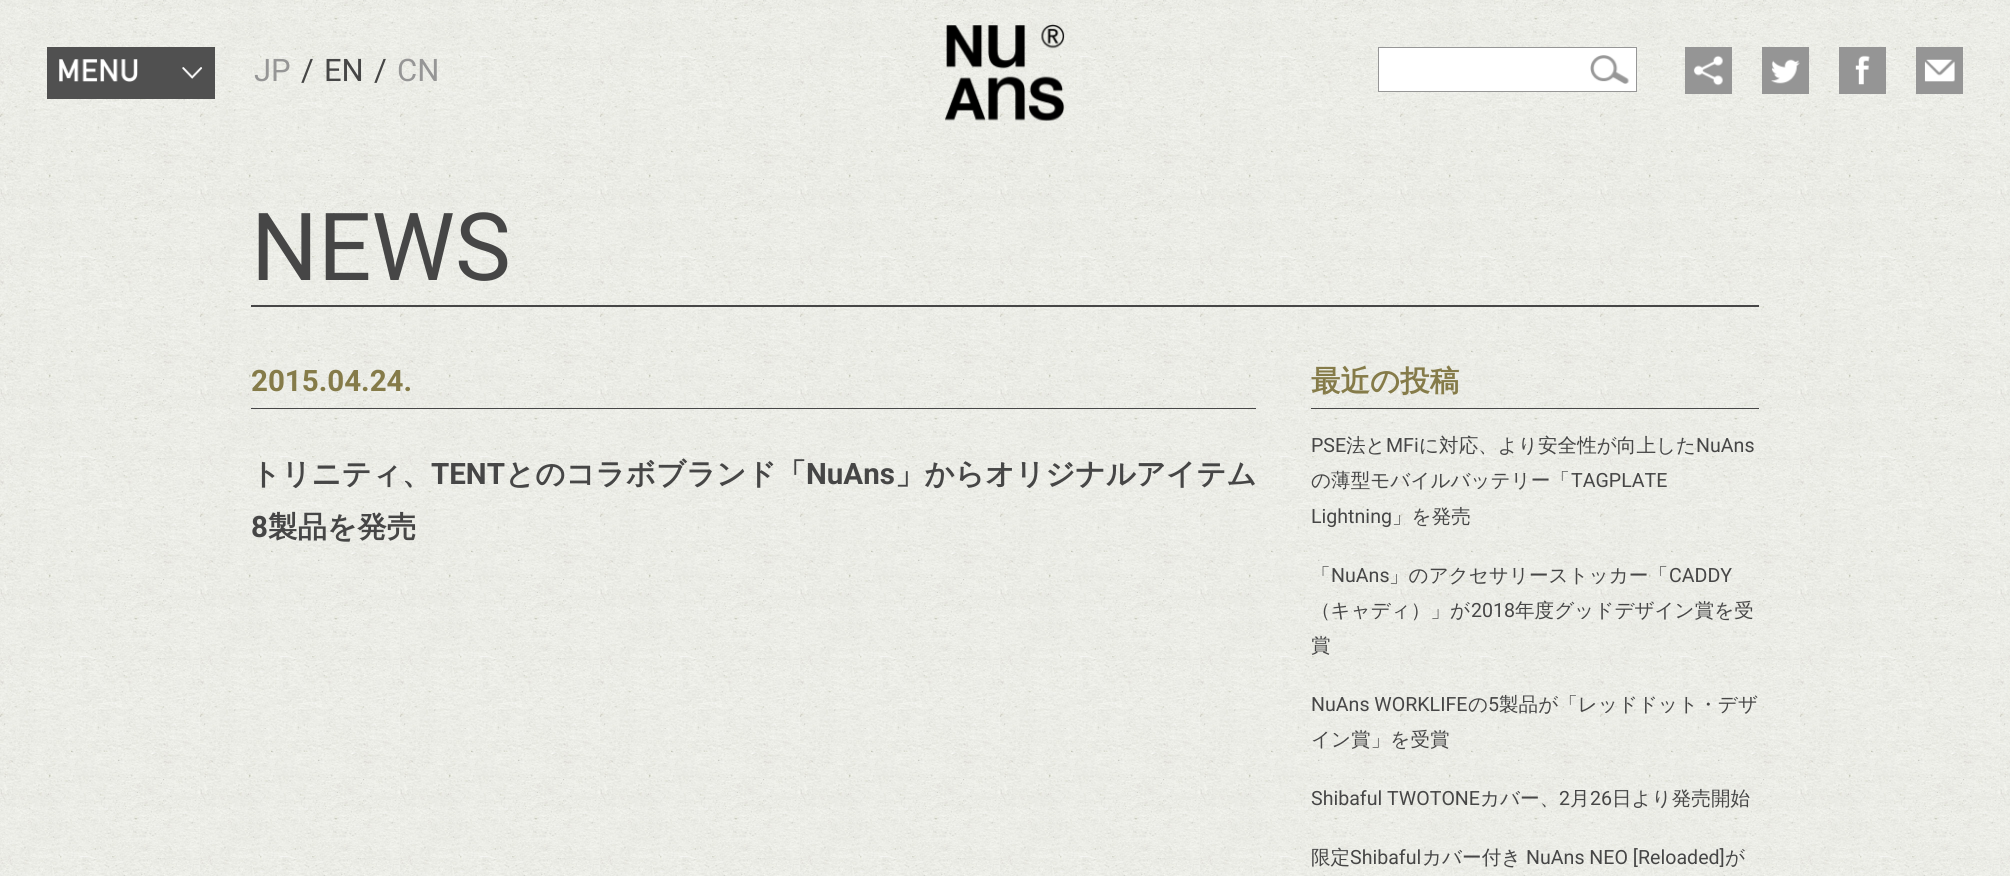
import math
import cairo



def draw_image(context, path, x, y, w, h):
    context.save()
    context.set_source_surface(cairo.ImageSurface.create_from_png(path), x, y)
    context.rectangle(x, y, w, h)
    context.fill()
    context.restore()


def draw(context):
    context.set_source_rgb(1, 1, 1)
    context.paint()
    draw_image(context, "images/1.png", 0, 0, 2010, 876)
    context.set_source_rgb(80 / 255, 80 / 255, 80 / 255)
    context.rectangle(47, 47, 168, 52)
    context.fill()
    draw_image(context, "images/2.png", 59, 59, 79, 23)
    draw_image(context, "images/3.png", 182, 67, 21, 12)
    draw_image(context, "images/4.png", 945, 24, 120, 97)
    context.set_source_rgb(1, 1, 1)
    context.rectangle(1378.5, 47.5, 258, 44)
    context.fill_preserve()
    context.set_source_rgb(150 / 255, 150 / 255, 150 / 255)
    context.set_line_width(1)
    context.stroke()
    draw_image(context, "images/5.png", 1590, 55, 40, 29)
    draw_image(context, "images/6.png", 1685, 47, 47, 47)
    draw_image(context, "images/7.png", 1762, 47, 47, 47)
    draw_image(context, "images/8.png", 1839, 47, 47, 47)
    draw_image(context, "images/9.png", 1916, 47, 47, 47)
    context.set_source_rgb(70 / 255, 70 / 255, 70 / 255)
    context.rectangle(251, 305, 1508, 2)
    context.fill()
    context.rectangle(251, 408, 1005, 1)
    context.fill()
    context.rectangle(1311, 408, 448, 1)
    context.fill()
    context.select_font_face("Roboto")
    context.set_font_size(31)
    context.set_source_rgb(150 / 255, 150 / 255, 150 / 255)
    context.move_to(254, 81)
    context.show_text("JP")
    context.set_source_rgb(70 / 255, 70 / 255, 70 / 255)
    context.move_to(301, 81)
    context.show_text("/")
    context.move_to(324, 81)
    context.show_text("EN")
    context.move_to(374, 81)
    context.show_text("/")
    context.set_source_rgb(150 / 255, 150 / 255, 150 / 255)
    context.move_to(397, 81)
    context.show_text("CN")
    context.set_font_size(94)
    context.set_source_rgb(70 / 255, 70 / 255, 70 / 255)
    context.move_to(251, 280)
    context.show_text("NEWS")
    context.select_font_face("Roboto", cairo.FontSlant.NORMAL, cairo.FontWeight.BOLD)
    context.set_font_size(29.5)
    context.set_source_rgb(133 / 255, 123 / 255, 73 / 255)
    context.move_to(251, 391)
    context.show_text("2015.04.24.")
    context.select_font_face("WenQuanYi Zen Hei", cairo.FontSlant.NORMAL, cairo.FontWeight.BOLD)
    context.set_source_rgb(70 / 255, 70 / 255, 70 / 255)
    context.move_to(251, 484)
    context.show_text("トリニティ、")
    context.select_font_face("Roboto", cairo.FontSlant.NORMAL, cairo.FontWeight.BOLD)
    context.move_to(431, 484)
    context.show_text("TENT")
    context.select_font_face("WenQuanYi Zen Hei", cairo.FontSlant.NORMAL, cairo.FontWeight.BOLD)
    context.move_to(505, 484)
    context.show_text("とのコラボブランド「")
    context.select_font_face("Roboto", cairo.FontSlant.NORMAL, cairo.FontWeight.BOLD)
    context.move_to(806, 484)
    context.show_text("NuAns")
    context.select_font_face("WenQuanYi Zen Hei", cairo.FontSlant.NORMAL, cairo.FontWeight.BOLD)
    context.move_to(895, 484)
    context.show_text("」からオリジナルアイテム")
    context.select_font_face("Roboto", cairo.FontSlant.NORMAL, cairo.FontWeight.BOLD)
    context.move_to(251, 537)
    context.show_text("8")
    context.select_font_face("WenQuanYi Zen Hei", cairo.FontSlant.NORMAL, cairo.FontWeight.BOLD)
    context.move_to(268, 537)
    context.show_text("製品を発売")
    context.set_source_rgb(133 / 255, 123 / 255, 73 / 255)
    context.move_to(1311, 391)
    context.show_text("最近の投稿")
    context.select_font_face("Roboto")
    context.set_font_size(19.6)
    context.set_source_rgb(70 / 255, 70 / 255, 70 / 255)
    context.move_to(1311, 452)
    context.show_text("PSE")
    context.select_font_face("WenQuanYi Zen Hei Medium")
    context.move_to(1346, 452)
    context.show_text("法と")
    context.select_font_face("Roboto")
    context.move_to(1386, 452)
    context.show_text("MFi")
    context.select_font_face("WenQuanYi Zen Hei Medium")
    context.move_to(1419, 452)
    context.show_text("に対応、より安全性が向上した")
    context.select_font_face("Roboto")
    context.move_to(1696, 452)
    context.show_text("NuAns")
    context.select_font_face("WenQuanYi Zen Hei Medium")
    context.move_to(1311, 487)
    context.show_text("の薄型モバイルバッテリー「")
    context.select_font_face("Roboto")
    context.move_to(1571, 487)
    context.show_text("TAGPLATE")
    context.move_to(1311, 523)
    context.show_text("Lightning")
    context.select_font_face("WenQuanYi Zen Hei Medium")
    context.move_to(1392, 523)
    context.show_text("」を発売")
    context.move_to(1311, 582)
    context.show_text("「")
    context.select_font_face("Roboto")
    context.move_to(1331, 582)
    context.show_text("NuAns")
    context.select_font_face("WenQuanYi Zen Hei Medium")
    context.move_to(1389, 582)
    context.show_text("」のアクセサリーストッカー「")
    context.select_font_face("Roboto")
    context.move_to(1669, 582)
    context.show_text("CADDY")
    context.select_font_face("WenQuanYi Zen Hei Medium")
    context.move_to(1311, 617)
    context.show_text("（キャディ）」が")
    context.select_font_face("Roboto")
    context.move_to(1471, 617)
    context.show_text("2018")
    context.select_font_face("WenQuanYi Zen Hei Medium")
    context.move_to(1515, 617)
    context.show_text("年度グッドデザイン賞を受")
    context.move_to(1311, 652)
    context.show_text("賞")
    context.select_font_face("Roboto")
    context.move_to(1311, 711)
    context.show_text("NuAns WORKLIFE")
    context.select_font_face("WenQuanYi Zen Hei Medium")
    context.move_to(1468, 711)
    context.show_text("の")
    context.select_font_face("Roboto")
    context.move_to(1488, 711)
    context.show_text("5")
    context.select_font_face("WenQuanYi Zen Hei Medium")
    context.move_to(1499, 711)
    context.show_text("製品が「レッドドット・デザ")
    context.move_to(1311, 746)
    context.show_text("イン賞」を受賞")
    context.select_font_face("Roboto")
    context.move_to(1311, 805)
    context.show_text("Shibaful TWOTONE")
    context.select_font_face("WenQuanYi Zen Hei Medium")
    context.move_to(1480, 805)
    context.show_text("カバー、")
    context.select_font_face("Roboto")
    context.move_to(1559, 805)
    context.show_text("2")
    context.select_font_face("WenQuanYi Zen Hei Medium")
    context.move_to(1570, 805)
    context.show_text("月")
    context.select_font_face("Roboto")
    context.move_to(1590, 805)
    context.show_text("26")
    context.select_font_face("WenQuanYi Zen Hei Medium")
    context.move_to(1612, 805)
    context.show_text("日より発売開始")
    context.move_to(1311, 864)
    context.show_text("限定")
    context.select_font_face("Roboto")
    context.move_to(1350, 864)
    context.show_text("Shibaful")
    context.select_font_face("WenQuanYi Zen Hei Medium")
    context.move_to(1422, 864)
    context.show_text("カバー付き")
    context.select_font_face("Roboto")
    context.move_to(1526, 864)
    context.show_text("NuAns NEO [Reloaded]")
    context.select_font_face("WenQuanYi Zen Hei Medium")
    context.move_to(1725, 864)
    context.show_text("が")


surface = cairo.ImageSurface(cairo.Format.RGB24, 2010, 876)
context = cairo.Context(surface)
options = cairo.FontOptions()
options.set_hint_metrics(cairo.HintMetrics.OFF)
options.set_hint_style(cairo.HintStyle.NONE)
context.set_font_options(options)
context.set_miter_limit(4)
draw(context)
surface.write_to_png("out.png")
